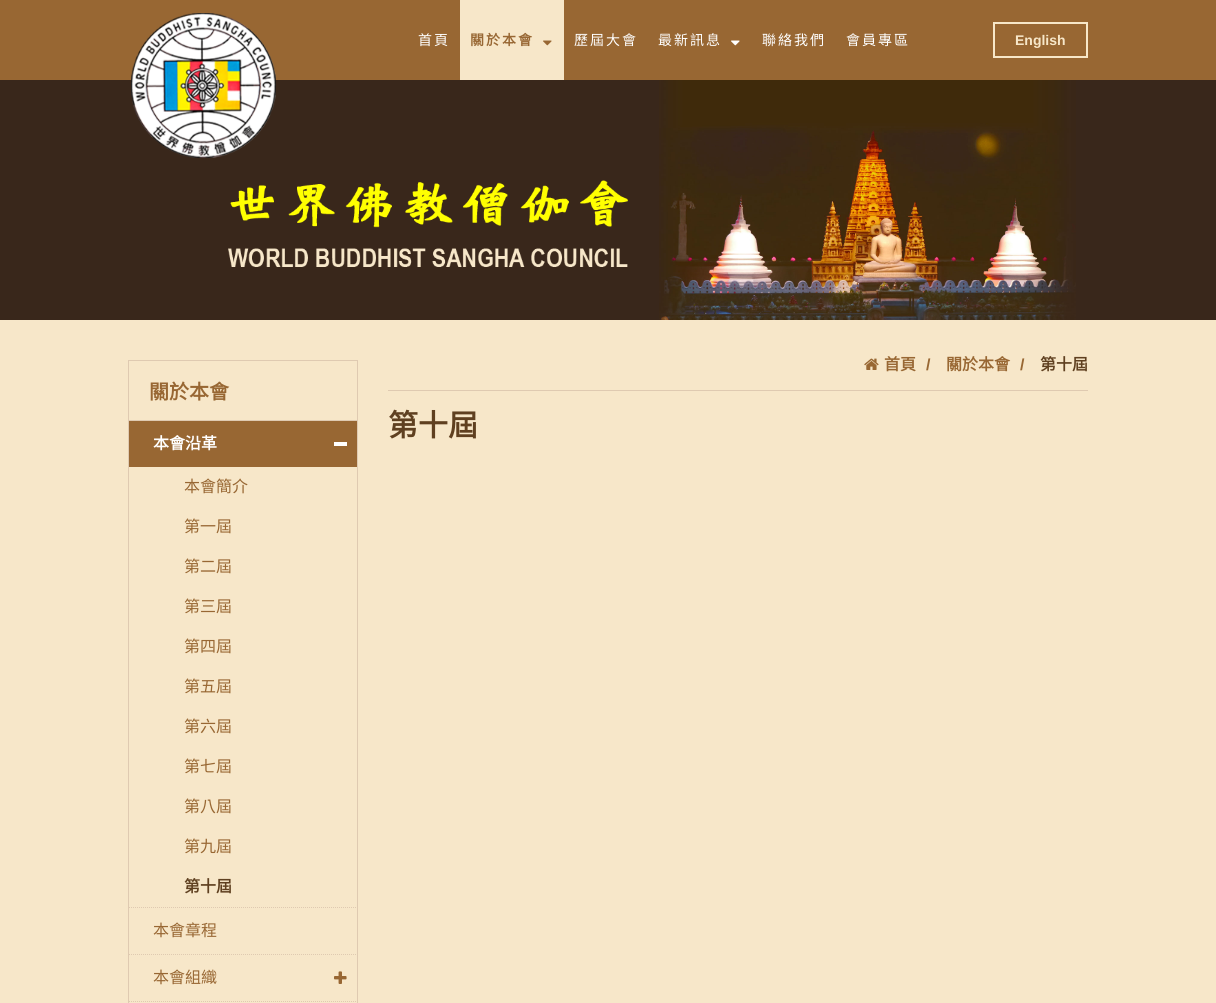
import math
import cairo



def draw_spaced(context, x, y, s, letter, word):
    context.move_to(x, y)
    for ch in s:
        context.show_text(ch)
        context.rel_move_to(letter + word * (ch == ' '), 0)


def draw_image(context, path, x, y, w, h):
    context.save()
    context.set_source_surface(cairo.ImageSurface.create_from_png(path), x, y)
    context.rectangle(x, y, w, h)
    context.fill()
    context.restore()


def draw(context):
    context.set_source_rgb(247 / 255, 231 / 255, 201 / 255)
    context.paint()
    context.set_source_rgb(152 / 255, 103 / 255, 51 / 255)
    context.rectangle(0, 0, 1216, 80)
    context.fill()
    context.set_source_rgb(57 / 255, 39 / 255, 27 / 255)
    context.rectangle(0, 80, 1216, 240)
    context.fill()
    draw_image(context, "images/1.png", 131, 13, 145, 145)
    context.set_source_rgb(247 / 255, 231 / 255, 201 / 255)
    context.rectangle(460, 0, 104, 80)
    context.fill()
    draw_image(context, "images/2.png", 543, 40, 9, 6)
    draw_image(context, "images/3.png", 731, 40, 9, 6)
    context.rectangle(994, 23, 93, 34)
    context.stroke()
    draw_image(context, "images/4.png", 228, 180, 400, 87)
    draw_image(context, "images/5.png", 659, 80, 417, 240)
    context.rectangle(128.5, 360.5, 229, 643)
    context.set_source_rgb(223 / 255, 202 / 255, 177 / 255)
    context.set_line_width(1)
    context.stroke()
    context.rectangle(129, 420, 228, 1)
    context.fill()
    context.new_path()
    context.move_to(129, 907.5)
    context.line_to(357, 907.5)
    context.set_dash([1, 1])
    context.stroke()
    context.set_source_rgb(152 / 255, 103 / 255, 51 / 255)
    context.rectangle(129, 421, 228, 46)
    context.fill()
    context.set_source_rgb(1, 1, 1)
    context.rectangle(334, 442, 13, 4)
    context.fill()
    context.new_path()
    context.move_to(129, 954.5)
    context.line_to(357, 954.5)
    context.set_source_rgb(223 / 255, 202 / 255, 177 / 255)
    context.stroke()
    context.new_path()
    context.move_to(129, 1001.5)
    context.line_to(357, 1001.5)
    context.stroke()
    draw_image(context, "images/6.png", 334, 971, 13, 13)
    context.rectangle(388, 390, 700, 1)
    context.fill()
    draw_image(context, "images/7.png", 864, 358, 15, 12)
    context.select_font_face("Noto Sans CJK TC")
    context.set_font_size(14)
    context.set_source_rgb(1, 1, 1)
    draw_spaced(context, 418, 45, "首頁", 2, 0)
    context.select_font_face("Noto Sans CJK TC", cairo.FontSlant.NORMAL, cairo.FontWeight.BOLD)
    context.set_source_rgb(152 / 255, 103 / 255, 51 / 255)
    draw_spaced(context, 470, 45, "關於本會", 2, 0)
    context.select_font_face("Noto Sans CJK TC")
    context.set_source_rgb(1, 1, 1)
    draw_spaced(context, 574, 45, "歷屆大會", 2, 0)
    draw_spaced(context, 658, 45, "最新訊息", 2, 0)
    draw_spaced(context, 762, 45, "聯絡我們", 2, 0)
    draw_spaced(context, 846, 45, "會員專區", 2, 0)
    context.select_font_face("Liberation Sans", cairo.FontSlant.NORMAL, cairo.FontWeight.BOLD)
    context.set_source_rgb(247 / 255, 231 / 255, 201 / 255)
    context.move_to(1015, 45)
    context.show_text("English")
    context.select_font_face("Noto Sans CJK TC", cairo.FontSlant.NORMAL, cairo.FontWeight.BOLD)
    context.set_font_size(20)
    context.set_source_rgb(152 / 255, 103 / 255, 51 / 255)
    context.move_to(149, 399)
    context.show_text("關於本會")
    context.set_font_size(16)
    context.set_source_rgb(1, 1, 1)
    context.move_to(153, 449)
    context.show_text("本會沿革")
    context.select_font_face("Noto Sans CJK TC")
    context.set_source_rgb(152 / 255, 103 / 255, 51 / 255)
    context.move_to(184, 492)
    context.show_text("本會簡介")
    context.move_to(184, 532)
    context.show_text("第一屆")
    context.move_to(184, 572)
    context.show_text("第二屆")
    context.move_to(184, 612)
    context.show_text("第三屆")
    context.move_to(184, 652)
    context.show_text("第四屆")
    context.move_to(184, 692)
    context.show_text("第五屆")
    context.move_to(184, 732)
    context.show_text("第六屆")
    context.move_to(184, 772)
    context.show_text("第七屆")
    context.move_to(184, 812)
    context.show_text("第八屆")
    context.move_to(184, 852)
    context.show_text("第九屆")
    context.select_font_face("Noto Sans CJK TC", cairo.FontSlant.NORMAL, cairo.FontWeight.BOLD)
    context.set_source_rgb(95 / 255, 64 / 255, 32 / 255)
    context.move_to(184, 892)
    context.show_text("第十屆")
    context.select_font_face("Noto Sans CJK TC")
    context.set_source_rgb(152 / 255, 103 / 255, 51 / 255)
    context.move_to(153, 936)
    context.show_text("本會章程")
    context.move_to(153, 983)
    context.show_text("本會組織")
    context.select_font_face("Noto Sans CJK TC", cairo.FontSlant.NORMAL, cairo.FontWeight.BOLD)
    context.move_to(884, 370)
    context.show_text("首頁")
    context.select_font_face("Liberation Sans", cairo.FontSlant.NORMAL, cairo.FontWeight.BOLD)
    context.move_to(926, 370)
    context.show_text("/")
    context.select_font_face("Noto Sans CJK TC", cairo.FontSlant.NORMAL, cairo.FontWeight.BOLD)
    context.move_to(946, 370)
    context.show_text("關於本會")
    context.select_font_face("Liberation Sans", cairo.FontSlant.NORMAL, cairo.FontWeight.BOLD)
    context.move_to(1020, 370)
    context.show_text("/")
    context.select_font_face("Noto Sans CJK TC", cairo.FontSlant.NORMAL, cairo.FontWeight.BOLD)
    context.set_source_rgb(95 / 255, 64 / 255, 32 / 255)
    context.move_to(1040, 370)
    context.show_text("第十屆")
    context.set_font_size(30)
    context.move_to(388, 436)
    context.show_text("第十屆")


surface = cairo.ImageSurface(cairo.Format.RGB24, 1216, 1003)
context = cairo.Context(surface)
options = cairo.FontOptions()
options.set_hint_metrics(cairo.HintMetrics.OFF)
options.set_hint_style(cairo.HintStyle.NONE)
context.set_font_options(options)
context.set_miter_limit(4)
draw(context)
surface.write_to_png("out.png")
